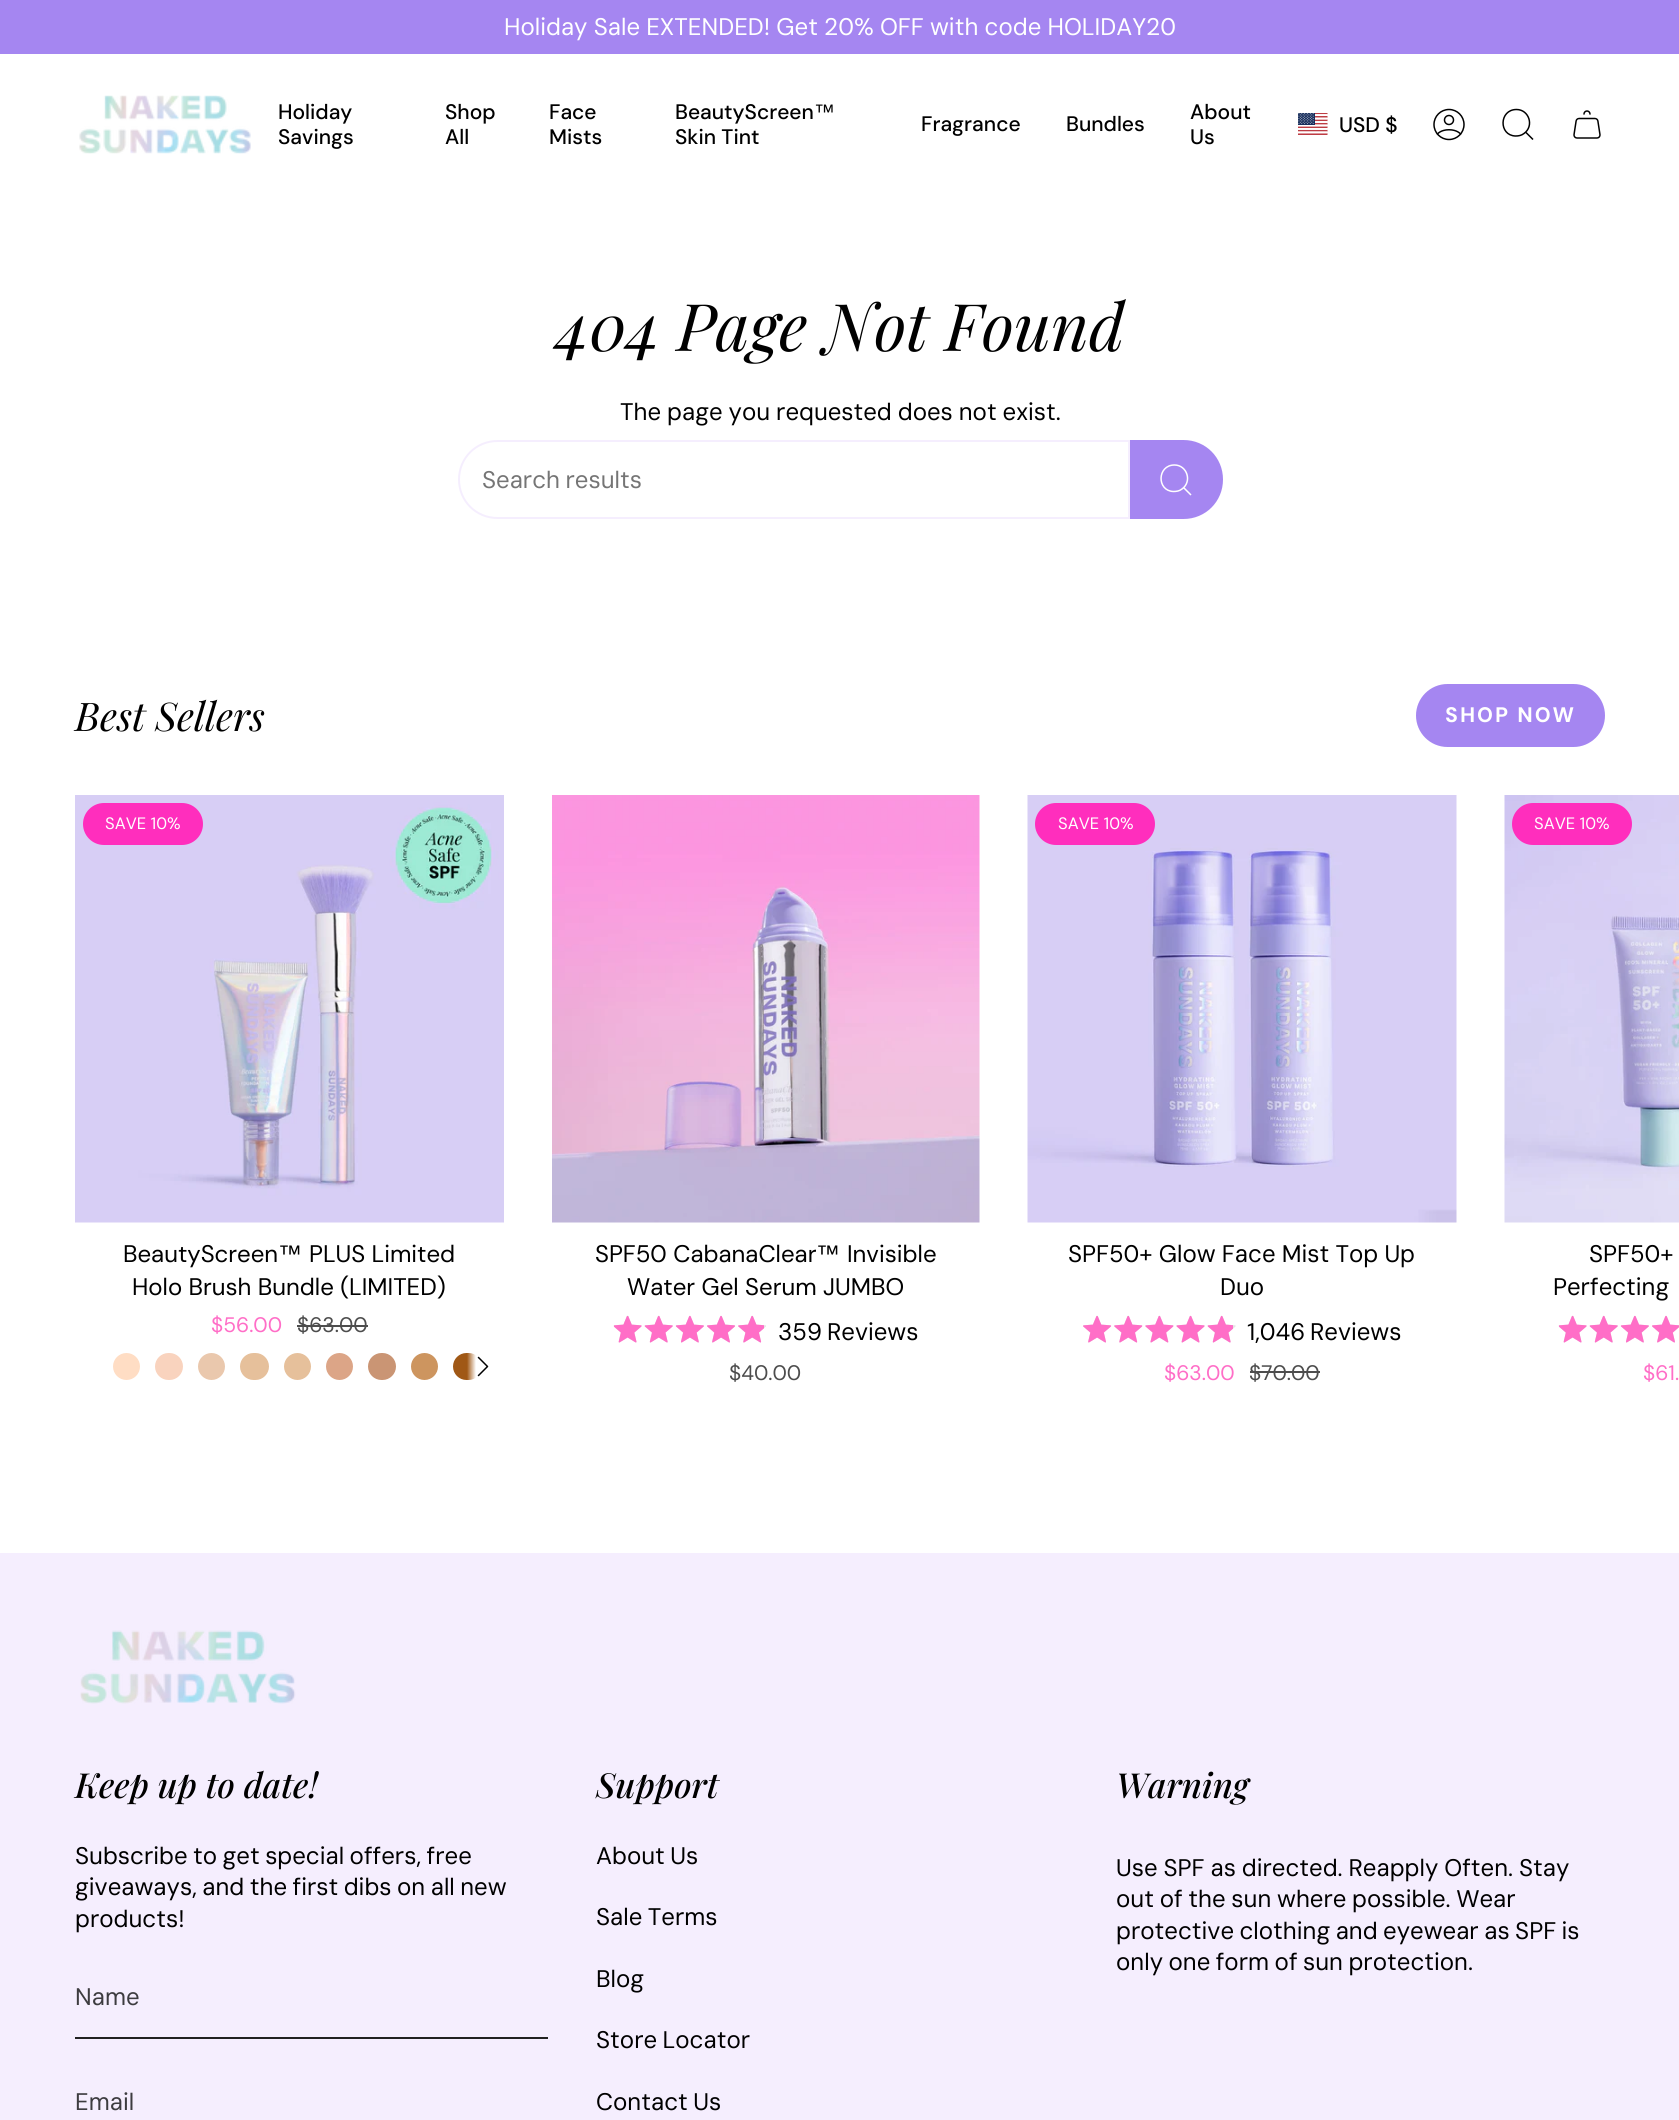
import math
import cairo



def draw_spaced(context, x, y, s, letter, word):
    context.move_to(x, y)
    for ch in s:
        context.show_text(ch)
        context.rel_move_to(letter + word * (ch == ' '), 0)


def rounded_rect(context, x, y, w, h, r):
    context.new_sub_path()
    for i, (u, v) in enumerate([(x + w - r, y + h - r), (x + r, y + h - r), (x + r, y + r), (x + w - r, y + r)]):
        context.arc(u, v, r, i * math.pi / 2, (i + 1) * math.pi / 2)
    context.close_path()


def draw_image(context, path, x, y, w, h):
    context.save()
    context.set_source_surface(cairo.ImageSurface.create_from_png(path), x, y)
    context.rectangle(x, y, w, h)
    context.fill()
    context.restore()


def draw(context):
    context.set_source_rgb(1, 1, 1)
    context.paint()
    context.set_source_rgb(165 / 255, 134 / 255, 241 / 255)
    context.rectangle(0, 0, 1679, 54)
    context.fill()
    draw_image(context, "images/1.png", 79, 95, 172, 59)
    draw_image(context, "images/2.png", 1298, 113, 30, 22)
    draw_image(context, "images/3.png", 1433, 108, 32, 33)
    context.new_path()
    context.move_to(1516.5, 109.5)
    context.curve_to(1529, 109.5, 1534.5, 126, 1524, 133.5)
    context.curve_to(1521.5, 135.5, 1518.5, 136, 1515.5, 136)
    context.curve_to(1498.5, 135.5, 1499, 109.5, 1516.5, 109.5)
    context.close_path()
    context.move_to(1525.5, 132)
    context.line_to(1533, 139.5)
    context.set_source_rgb(0, 0, 0)
    context.set_line_width(1.5)
    context.stroke()
    draw_image(context, "images/4.png", 1573, 110, 28, 29)
    context.new_path()
    context.move_to(497.5, 441)
    context.line_to(1129, 441)
    context.line_to(1129, 518)
    context.line_to(497.5, 518)
    context.curve_to(476, 518, 459, 501, 459, 479.5)
    context.curve_to(459, 458, 476, 441, 497.5, 441)
    context.close_path()
    context.set_source_rgb(245 / 255, 238 / 255, 254 / 255)
    context.set_line_width(2)
    context.stroke()
    context.set_source_rgb(165 / 255, 134 / 255, 241 / 255)
    context.new_path()
    context.move_to(1131, 441)
    context.line_to(1183.5, 441)
    context.curve_to(1205, 441, 1222, 458, 1222, 479.5)
    context.curve_to(1222, 501, 1205, 518, 1183.5, 518)
    context.line_to(1131, 518)
    context.close_path()
    context.fill_preserve()
    context.stroke()
    context.new_path()
    context.move_to(1174.5, 465)
    context.curve_to(1187, 465, 1192.5, 481.5, 1182, 489)
    context.curve_to(1179.5, 491, 1176.5, 491.5, 1173.5, 491.5)
    context.curve_to(1156.5, 491, 1157, 465, 1174.5, 465)
    context.close_path()
    context.move_to(1183.5, 487.5)
    context.line_to(1191, 495)
    context.set_source_rgb(1, 1, 1)
    context.set_line_width(1.5)
    context.stroke()
    context.set_source_rgb(165 / 255, 134 / 255, 241 / 255)
    rounded_rect(context, 1417, 685, 187, 61, 30.5)
    context.fill_preserve()
    context.set_line_width(2)
    context.stroke()
    draw_image(context, "images/5.png", 75, 795, 429, 428)
    context.set_source_rgb(1, 46 / 255, 189 / 255)
    rounded_rect(context, 83, 803, 120, 42, 21)
    context.fill()
    context.set_source_rgb(77 / 255, 77 / 255, 77 / 255)
    context.rectangle(297, 1325, 71, 2)
    context.fill()
    context.set_source_rgb(1, 221 / 255, 196 / 255)
    context.arc(126.5, 1366.5, 13.5, 0, 2 * math.pi)
    context.fill()
    context.set_source_rgb(249 / 255, 211 / 255, 190 / 255)
    rounded_rect(context, 155, 1353, 28, 27, 13.5)
    context.fill()
    context.set_source_rgb(234 / 255, 200 / 255, 173 / 255)
    context.arc(211.5, 1366.5, 13.5, 0, 2 * math.pi)
    context.fill()
    context.set_source_rgb(230 / 255, 192 / 255, 155 / 255)
    rounded_rect(context, 240, 1353, 29, 27, 13.5)
    context.fill()
    context.arc(297.5, 1366.5, 13.5, 0, 2 * math.pi)
    context.fill()
    context.set_source_rgb(220 / 255, 165 / 255, 135 / 255)
    context.arc(339.5, 1366.5, 13.5, 0, 2 * math.pi)
    context.fill()
    context.set_source_rgb(202 / 255, 149 / 255, 116 / 255)
    rounded_rect(context, 368, 1353, 28, 27, 13.5)
    context.fill()
    context.set_source_rgb(205 / 255, 149 / 255, 95 / 255)
    context.arc(424.5, 1366.5, 13.5, 0, 2 * math.pi)
    context.fill()
    context.set_source_rgb(160 / 255, 88 / 255, 21 / 255)
    rounded_rect(context, 453, 1353, 29, 27, 13.5)
    context.fill()
    gradient = cairo.LinearGradient(485, 1367, 467, 1367)
    gradient.add_color_stop_rgba(0.5, 1, 1, 1, 1)
    gradient.add_color_stop_rgba(1, 1, 1, 1, 0)
    context.set_source(gradient)
    context.rectangle(467, 1353, 15, 27)
    context.fill()
    context.new_path()
    context.move_to(478.5, 1357.5)
    context.line_to(487.5, 1366.5)
    context.line_to(478.5, 1375.5)
    context.set_source_rgb(0, 0, 0)
    context.set_line_width(1.5)
    context.set_line_cap(cairo.LineCap.ROUND)
    context.set_line_join(cairo.LineJoin.ROUND)
    context.stroke()
    draw_image(context, "images/6.png", 552, 795, 428, 428)
    draw_image(context, "images/7.png", 613, 1315, 153, 28)
    draw_image(context, "images/8.png", 614, 1316, 150, 27)
    draw_image(context, "images/9.png", 1027, 795, 430, 428)
    context.set_source_rgb(1, 46 / 255, 189 / 255)
    rounded_rect(context, 1035, 803, 120, 42, 21)
    context.fill()
    draw_image(context, "images/10.png", 1083, 1315, 153, 28)
    draw_image(context, "images/11.png", 1083, 1316, 150, 27)
    context.set_source_rgb(77 / 255, 77 / 255, 77 / 255)
    context.rectangle(1250, 1371, 70, 2)
    context.fill()
    draw_image(context, "images/12.png", 1504, 795, 175, 428)
    context.set_source_rgb(1, 46 / 255, 189 / 255)
    rounded_rect(context, 1512, 803, 120, 42, 21)
    context.fill()
    draw_image(context, "images/13.png", 1558, 1315, 121, 28)
    draw_image(context, "images/14.png", 1559, 1316, 120, 27)
    context.set_source_rgb(245 / 255, 238 / 255, 254 / 255)
    context.rectangle(0, 1553, 1679, 567)
    context.fill()
    draw_image(context, "images/15.png", 80, 1630, 216, 74)
    context.set_source_rgb(33 / 255, 33 / 255, 33 / 255)
    context.rectangle(75, 2037, 473, 2)
    context.fill()
    context.select_font_face("DM Sans")
    context.set_font_size(24)
    context.set_source_rgb(1, 1, 1)
    draw_spaced(context, 504, 35, "Holiday Sale EXTENDED! Get 20% OFF with code HOLIDAY20", 0, -0.25)
    context.select_font_face("DM Sans Medium")
    context.set_font_size(21)
    context.set_source_rgb(0, 0, 0)
    context.move_to(278, 119)
    context.show_text("Holiday")
    context.move_to(278, 144)
    context.show_text("Savings")
    context.move_to(445, 119)
    context.show_text("Shop")
    context.move_to(445, 144)
    context.show_text("All")
    context.move_to(549, 119)
    context.show_text("Face")
    context.move_to(549, 144)
    context.show_text("Mists")
    context.move_to(675, 119)
    context.show_text("BeautyScreen")
    context.select_font_face("Liberation Sans")
    context.move_to(814, 119)
    context.show_text("™")
    context.select_font_face("DM Sans Medium")
    context.move_to(675, 144)
    context.show_text("Skin Tint")
    context.move_to(921, 131)
    context.show_text("Fragrance")
    context.move_to(1066, 131)
    context.show_text("Bundles")
    context.move_to(1190, 119)
    context.show_text("About")
    context.move_to(1190, 144)
    context.show_text("Us")
    context.move_to(1339, 132)
    context.show_text("USD $")
    context.select_font_face("Playfair Display", cairo.FontSlant.ITALIC)
    context.set_font_size(65.5)
    context.move_to(556, 351)
    context.show_text("404 Page Not Found")
    context.select_font_face("DM Sans")
    context.set_font_size(24)
    draw_spaced(context, 620, 420, "The page you requested does not exist.", 0, -0.5)
    context.set_source_rgb(117 / 255, 117 / 255, 117 / 255)
    draw_spaced(context, 482, 488, "Search results", 0, -1)
    context.select_font_face("Playfair Display", cairo.FontSlant.ITALIC)
    context.set_font_size(39.5)
    context.set_source_rgb(0, 0, 0)
    context.move_to(75, 731)
    context.show_text("Best Sellers")
    context.select_font_face("DM Sans", cairo.FontSlant.NORMAL, cairo.FontWeight.BOLD)
    context.set_font_size(21)
    context.set_source_rgb(1, 1, 1)
    draw_spaced(context, 1445, 722, "SHOP NOW", 2, 0)
    context.select_font_face("DM Sans")
    context.set_font_size(16.5)
    context.move_to(105, 829)
    context.show_text("SAVE 10%")
    context.select_font_face("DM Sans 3")
    context.set_font_size(24)
    context.set_source_rgb(0, 0, 0)
    context.move_to(123, 1262)
    context.show_text("BeautyScreen")
    context.select_font_face("Liberation Sans")
    context.move_to(278, 1262)
    context.show_text("™")
    context.select_font_face("DM Sans 3")
    context.move_to(309, 1262)
    context.show_text("PLUS Limited")
    context.move_to(132, 1295)
    context.show_text("Holo Brush Bundle (LIMITED)")
    context.select_font_face("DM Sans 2")
    context.set_font_size(21)
    context.set_source_rgb(1, 110 / 255, 199 / 255)
    context.move_to(211, 1332)
    context.show_text("$56.00")
    context.set_source_rgb(77 / 255, 77 / 255, 77 / 255)
    context.move_to(297, 1332)
    context.show_text("$63.00")
    context.select_font_face("DM Sans 3")
    context.set_font_size(24)
    context.set_source_rgb(0, 0, 0)
    context.move_to(595, 1262)
    context.show_text("SPF50 CabanaClear")
    context.select_font_face("Liberation Sans")
    context.move_to(816, 1262)
    context.show_text("™")
    context.select_font_face("DM Sans 3")
    context.move_to(847, 1262)
    context.show_text("Invisible")
    context.move_to(627, 1295)
    context.show_text("Water Gel Serum JUMBO")
    context.select_font_face("DM Sans")
    context.move_to(778, 1340)
    context.show_text("359")
    context.move_to(827, 1340)
    context.show_text("Reviews")
    context.select_font_face("DM Sans 2")
    context.set_font_size(21)
    context.set_source_rgb(77 / 255, 77 / 255, 77 / 255)
    context.move_to(729, 1380)
    context.show_text("$40.00")
    context.select_font_face("DM Sans")
    context.set_font_size(16.5)
    context.set_source_rgb(1, 1, 1)
    context.move_to(1058, 829)
    context.show_text("SAVE 10%")
    context.set_font_size(24)
    context.set_source_rgb(0, 0, 0)
    draw_spaced(context, 1068, 1262, "SPF50+ Glow Face Mist Top Up", 0, -0.25)
    context.move_to(1220, 1295)
    context.show_text("Duo")
    context.move_to(1247, 1340)
    context.show_text("1,046")
    context.move_to(1310, 1340)
    context.show_text("Reviews")
    context.select_font_face("DM Sans 2")
    context.set_font_size(21)
    context.set_source_rgb(1, 110 / 255, 199 / 255)
    context.move_to(1164, 1380)
    context.show_text("$63.00")
    context.set_source_rgb(77 / 255, 77 / 255, 77 / 255)
    context.move_to(1249, 1380)
    context.show_text("$70.00")
    context.select_font_face("DM Sans")
    context.set_font_size(16.5)
    context.set_source_rgb(1, 1, 1)
    context.move_to(1534, 829)
    context.show_text("SAVE 10%")
    context.set_font_size(24)
    context.set_source_rgb(0, 0, 0)
    draw_spaced(context, 1589, 1262, "SPF50+", 0, -0.5)
    draw_spaced(context, 1553, 1295, "Perfecting", 0, -1)
    context.select_font_face("DM Sans 2")
    context.set_font_size(21)
    context.set_source_rgb(1, 110 / 255, 199 / 255)
    context.move_to(1643, 1380)
    context.show_text("$61.")
    context.select_font_face("Playfair Display Medium", cairo.FontSlant.ITALIC)
    context.set_font_size(34.5)
    context.set_source_rgb(0, 0, 0)
    context.move_to(75, 1798)
    context.show_text("Keep up to date!")
    context.select_font_face("DM Sans")
    context.set_font_size(24)
    draw_spaced(context, 75, 1864, "Subscribe to get special offers, free", 0, -1)
    draw_spaced(context, 75, 1895, "giveaways, and the first dibs on all new", 0, -1)
    context.move_to(75, 1927)
    context.show_text("products!")
    context.set_source_rgb(61 / 255, 60 / 255, 64 / 255)
    context.move_to(75, 2005)
    context.show_text("Name")
    context.move_to(75, 2110)
    context.show_text("Email")
    context.select_font_face("Playfair Display Medium", cairo.FontSlant.ITALIC)
    context.set_font_size(34.5)
    context.set_source_rgb(0, 0, 0)
    context.move_to(596, 1798)
    context.show_text("Support")
    context.select_font_face("DM Sans")
    context.set_font_size(24)
    draw_spaced(context, 596, 1864, "About Us", 0, -1)
    draw_spaced(context, 596, 1925, "Sale Terms", 0, -1)
    context.move_to(596, 1987)
    context.show_text("Blog")
    draw_spaced(context, 596, 2048, "Store Locator", 0, -1)
    draw_spaced(context, 596, 2110, "Contact Us", 0, -1)
    context.select_font_face("Playfair Display Medium", cairo.FontSlant.ITALIC)
    context.set_font_size(34.5)
    context.move_to(1116, 1798)
    context.show_text("Warning")
    context.select_font_face("DM Sans")
    context.set_font_size(24)
    draw_spaced(context, 1116, 1876, "Use SPF as directed. Reapply Often. Stay", 0, -0.5)
    draw_spaced(context, 1116, 1907, "out of the sun where possible. Wear", 0, -0.75)
    draw_spaced(context, 1116, 1939, "protective clothing and eyewear as SPF is", 0, -1)
    draw_spaced(context, 1116, 1970, "only one form of sun protection.", 0, -1)


surface = cairo.ImageSurface(cairo.Format.RGB24, 1679, 2120)
context = cairo.Context(surface)
options = cairo.FontOptions()
options.set_hint_metrics(cairo.HintMetrics.OFF)
options.set_hint_style(cairo.HintStyle.NONE)
context.set_font_options(options)
context.set_miter_limit(4)
draw(context)
surface.write_to_png("out.png")
